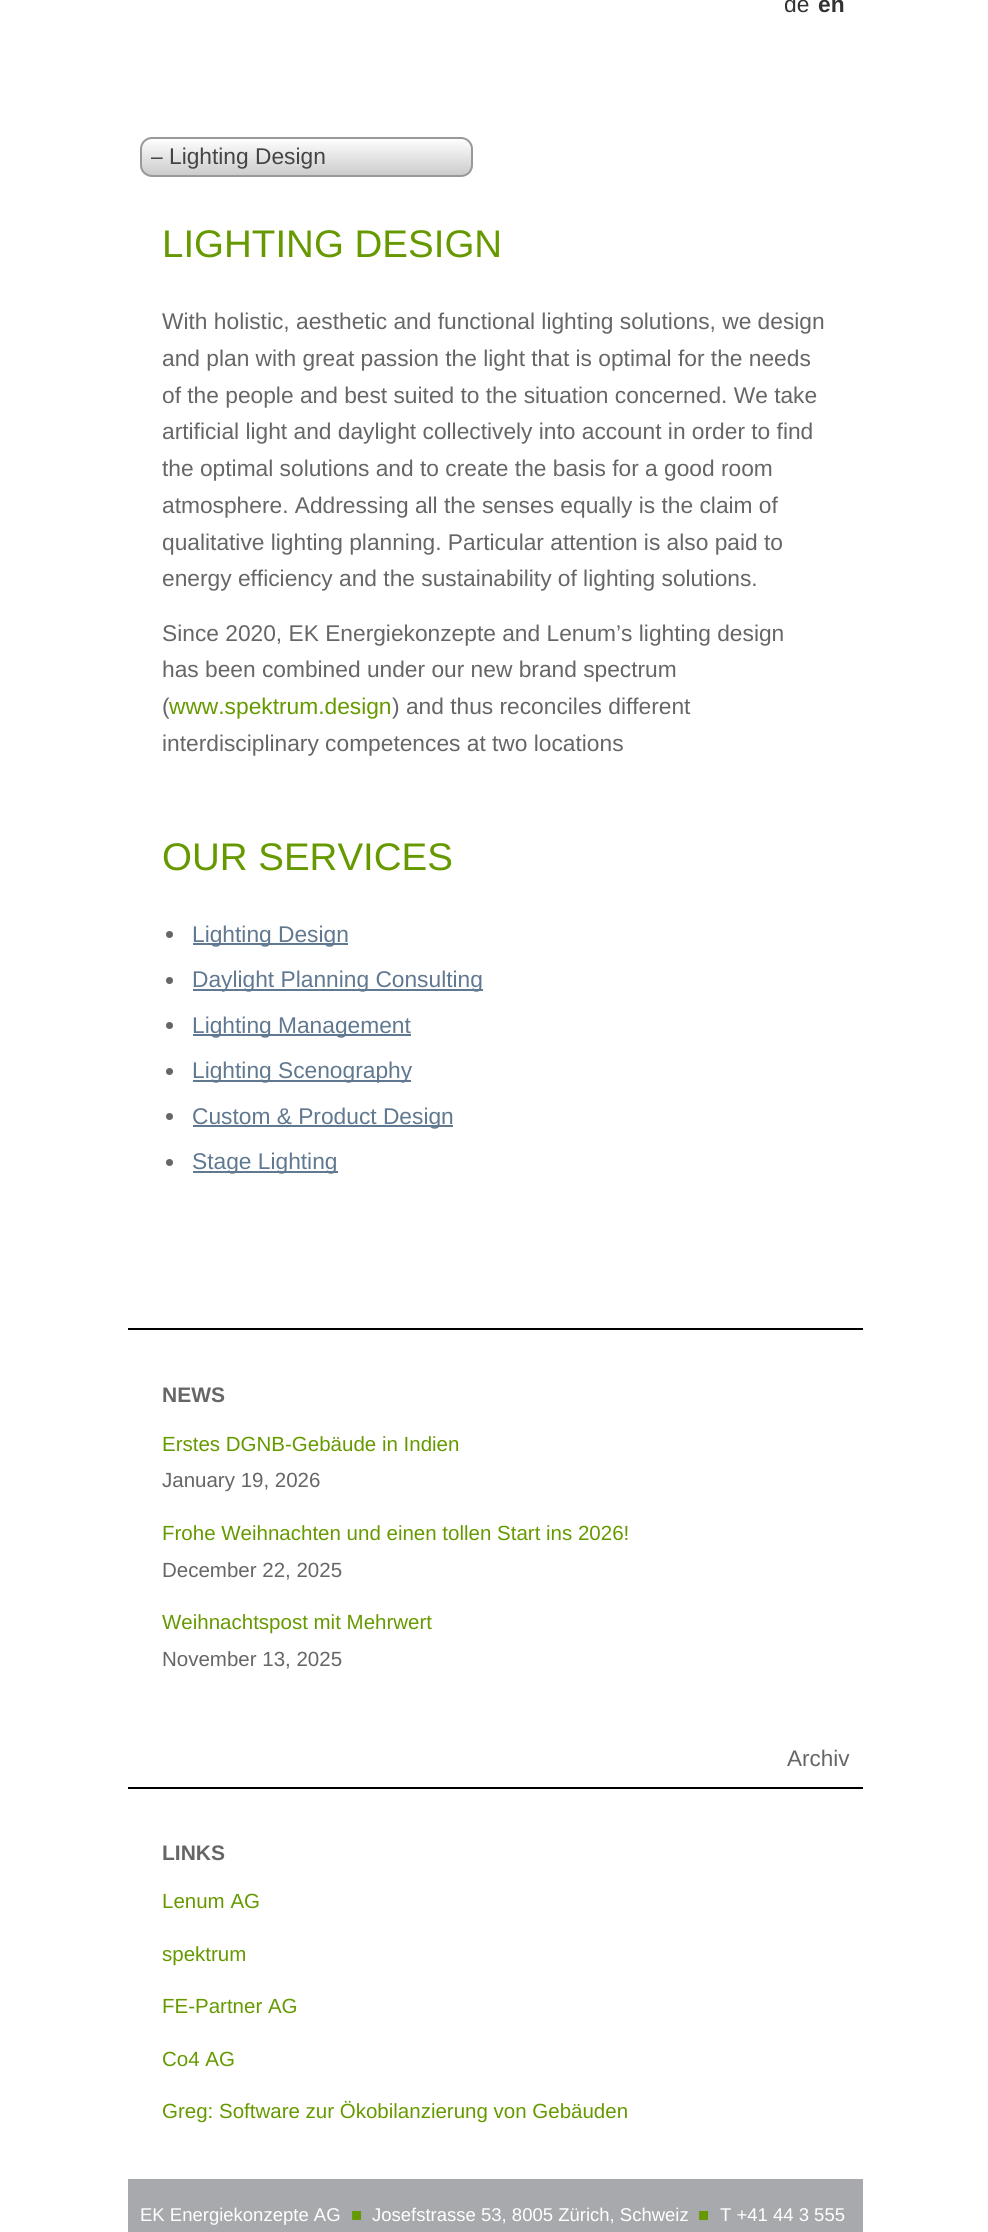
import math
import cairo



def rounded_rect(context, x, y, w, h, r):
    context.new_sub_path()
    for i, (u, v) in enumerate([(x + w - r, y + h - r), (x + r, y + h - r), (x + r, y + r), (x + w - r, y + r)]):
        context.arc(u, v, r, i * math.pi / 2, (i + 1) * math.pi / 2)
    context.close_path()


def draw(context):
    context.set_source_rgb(1, 1, 1)
    context.paint()
    context.save()
    rounded_rect(context, 140, 137, 333, 40, 12)
    context.clip()
    gradient = cairo.LinearGradient(142, 138, 142, 175)
    gradient.add_color_stop_rgba(0, 1, 1, 1, 1)
    gradient.add_color_stop_rgba(1, 204 / 255, 204 / 255, 204 / 255, 1)
    context.set_source(gradient)
    context.rectangle(140, 138, 333, 37)
    context.fill()
    context.restore()
    rounded_rect(context, 141, 138, 331, 38, 11)
    context.set_source_rgb(153 / 255, 153 / 255, 153 / 255)
    context.stroke()
    context.set_source_rgb(102 / 255, 102 / 255, 102 / 255)
    context.arc(169.5, 934.5, 3.5, 0, 2 * math.pi)
    context.fill()
    context.set_source_rgb(96 / 255, 120 / 255, 144 / 255)
    context.rectangle(193, 943, 155, 2)
    context.fill()
    context.set_source_rgb(102 / 255, 102 / 255, 102 / 255)
    context.arc(169.5, 980.5, 3.5, 0, 2 * math.pi)
    context.fill()
    context.set_source_rgb(96 / 255, 120 / 255, 144 / 255)
    context.rectangle(193, 989, 290, 2)
    context.fill()
    context.set_source_rgb(102 / 255, 102 / 255, 102 / 255)
    context.arc(169.5, 1025.5, 3.5, 0, 2 * math.pi)
    context.fill()
    context.set_source_rgb(96 / 255, 120 / 255, 144 / 255)
    context.rectangle(193, 1034, 218, 2)
    context.fill()
    context.set_source_rgb(102 / 255, 102 / 255, 102 / 255)
    context.arc(169.5, 1071.5, 3.5, 0, 2 * math.pi)
    context.fill()
    context.set_source_rgb(96 / 255, 120 / 255, 144 / 255)
    context.rectangle(193, 1080, 218, 2)
    context.fill()
    context.set_source_rgb(102 / 255, 102 / 255, 102 / 255)
    context.arc(169.5, 1116.5, 3.5, 0, 2 * math.pi)
    context.fill()
    context.set_source_rgb(96 / 255, 120 / 255, 144 / 255)
    context.rectangle(193, 1125, 260, 2)
    context.fill()
    context.set_source_rgb(102 / 255, 102 / 255, 102 / 255)
    context.arc(169.5, 1162.5, 3.5, 0, 2 * math.pi)
    context.fill()
    context.set_source_rgb(96 / 255, 120 / 255, 144 / 255)
    context.rectangle(193, 1171, 145, 2)
    context.fill()
    context.set_source_rgb(0, 0, 0)
    context.rectangle(128, 1328, 735, 2)
    context.fill()
    context.rectangle(128, 1787, 735, 2)
    context.fill()
    context.set_source_rgb(167 / 255, 169 / 255, 172 / 255)
    context.rectangle(128, 2179, 735, 53)
    context.fill()
    context.select_font_face("Liberation Sans")
    context.set_font_size(22.75)
    context.set_source_rgb(51 / 255, 51 / 255, 51 / 255)
    context.move_to(784, 12)
    context.show_text("de")
    context.select_font_face("Liberation Sans", cairo.FontSlant.NORMAL, cairo.FontWeight.BOLD)
    context.move_to(818, 12)
    context.show_text("en")
    context.save()
    context.rectangle(151, 144, 315, 26)
    context.clip()
    context.select_font_face("Liberation Sans")
    context.set_source_rgb(68 / 255, 68 / 255, 68 / 255)
    context.move_to(150, 164)
    context.show_text("– Lighting Design")
    context.restore()
    context.select_font_face("Liberation Sans")
    context.set_font_size(38.5)
    context.set_source_rgb(102 / 255, 153 / 255, 0)
    context.move_to(162, 257)
    context.show_text("LIGHTING DESIGN")
    context.set_font_size(22.75)
    context.set_source_rgb(102 / 255, 102 / 255, 102 / 255)
    context.move_to(162, 329)
    context.show_text("With holistic, aesthetic and functional lighting solutions, we design")
    context.move_to(162, 366)
    context.show_text("and plan with great passion the light that is optimal for the needs")
    context.move_to(162, 403)
    context.show_text("of the people and best suited to the situation concerned. We take")
    context.move_to(162, 439)
    context.show_text("artificial light and daylight collectively into account in order to find")
    context.move_to(162, 476)
    context.show_text("the optimal solutions and to create the basis for a good room")
    context.move_to(162, 513)
    context.show_text("atmosphere. Addressing all the senses equally is the claim of")
    context.move_to(162, 550)
    context.show_text("qualitative lighting planning. Particular attention is also paid to")
    context.move_to(162, 586)
    context.show_text("energy efficiency and the sustainability of lighting solutions.")
    context.move_to(162, 641)
    context.show_text("Since 2020, EK Energiekonzepte and Lenum’s lighting design")
    context.move_to(162, 677)
    context.show_text("has been combined under our new brand spectrum")
    context.move_to(162, 714)
    context.show_text("(")
    context.set_source_rgb(102 / 255, 153 / 255, 0)
    context.move_to(169, 714)
    context.show_text("www.spektrum.design")
    context.set_source_rgb(102 / 255, 102 / 255, 102 / 255)
    context.move_to(392, 714)
    context.show_text(") and thus reconciles different")
    context.move_to(162, 751)
    context.show_text("interdisciplinary competences at two locations")
    context.set_font_size(38.5)
    context.set_source_rgb(102 / 255, 153 / 255, 0)
    context.move_to(162, 870)
    context.show_text("OUR SERVICES")
    context.set_font_size(22.75)
    context.set_source_rgb(96 / 255, 120 / 255, 144 / 255)
    context.move_to(192, 942)
    context.show_text("Lighting Design")
    context.move_to(192, 987)
    context.show_text("Daylight Planning Consulting")
    context.move_to(192, 1033)
    context.show_text("Lighting Management")
    context.move_to(192, 1078)
    context.show_text("Lighting Scenography")
    context.move_to(192, 1124)
    context.show_text("Custom & Product Design")
    context.move_to(192, 1169)
    context.show_text("Stage Lighting")
    context.select_font_face("Liberation Sans", cairo.FontSlant.NORMAL, cairo.FontWeight.BOLD)
    context.set_font_size(21)
    context.set_source_rgb(102 / 255, 102 / 255, 102 / 255)
    context.move_to(162, 1402)
    context.show_text("NEWS")
    context.select_font_face("Liberation Sans")
    context.set_font_size(20.5)
    context.set_source_rgb(102 / 255, 153 / 255, 0)
    context.move_to(162, 1451)
    context.show_text("Erstes DGNB-Gebäude in Indien")
    context.set_source_rgb(102 / 255, 102 / 255, 102 / 255)
    context.move_to(162, 1487)
    context.show_text("January 19, 2026")
    context.set_source_rgb(102 / 255, 153 / 255, 0)
    context.move_to(162, 1540)
    context.show_text("Frohe Weihnachten und einen tollen Start ins 2026!")
    context.set_source_rgb(102 / 255, 102 / 255, 102 / 255)
    context.move_to(162, 1577)
    context.show_text("December 22, 2025")
    context.set_source_rgb(102 / 255, 153 / 255, 0)
    context.move_to(162, 1629)
    context.show_text("Weihnachtspost mit Mehrwert")
    context.set_source_rgb(102 / 255, 102 / 255, 102 / 255)
    context.move_to(162, 1666)
    context.show_text("November 13, 2025")
    context.set_font_size(22.5)
    context.move_to(787, 1766)
    context.show_text("Archiv")
    context.select_font_face("Liberation Sans", cairo.FontSlant.NORMAL, cairo.FontWeight.BOLD)
    context.set_font_size(21)
    context.move_to(162, 1860)
    context.show_text("LINKS")
    context.select_font_face("Liberation Sans")
    context.set_font_size(20.5)
    context.set_source_rgb(102 / 255, 153 / 255, 0)
    context.move_to(162, 1908)
    context.show_text("Lenum AG")
    context.move_to(162, 1961)
    context.show_text("spektrum")
    context.move_to(162, 2013)
    context.show_text("FE-Partner AG")
    context.move_to(162, 2066)
    context.show_text("Co4 AG")
    context.move_to(162, 2118)
    context.show_text("Greg: Software zur Ökobilanzierung von Gebäuden")
    context.set_font_size(18.5)
    context.set_source_rgb(1, 1, 1)
    context.move_to(140, 2221)
    context.show_text("EK Energiekonzepte AG")
    context.set_source_rgb(102 / 255, 153 / 255, 0)
    context.move_to(351, 2221)
    context.show_text("■")
    context.set_source_rgb(1, 1, 1)
    context.move_to(372, 2221)
    context.show_text("Josefstrasse 53, 8005 Zürich, Schweiz")
    context.set_source_rgb(102 / 255, 153 / 255, 0)
    context.move_to(698, 2221)
    context.show_text("■")
    context.set_source_rgb(1, 1, 1)
    context.move_to(720, 2221)
    context.show_text("T +41 44 3 555")


surface = cairo.ImageSurface(cairo.Format.RGB24, 988, 2232)
context = cairo.Context(surface)
options = cairo.FontOptions()
options.set_hint_metrics(cairo.HintMetrics.OFF)
options.set_hint_style(cairo.HintStyle.NONE)
context.set_font_options(options)
context.set_miter_limit(4)
draw(context)
surface.write_to_png("out.png")
